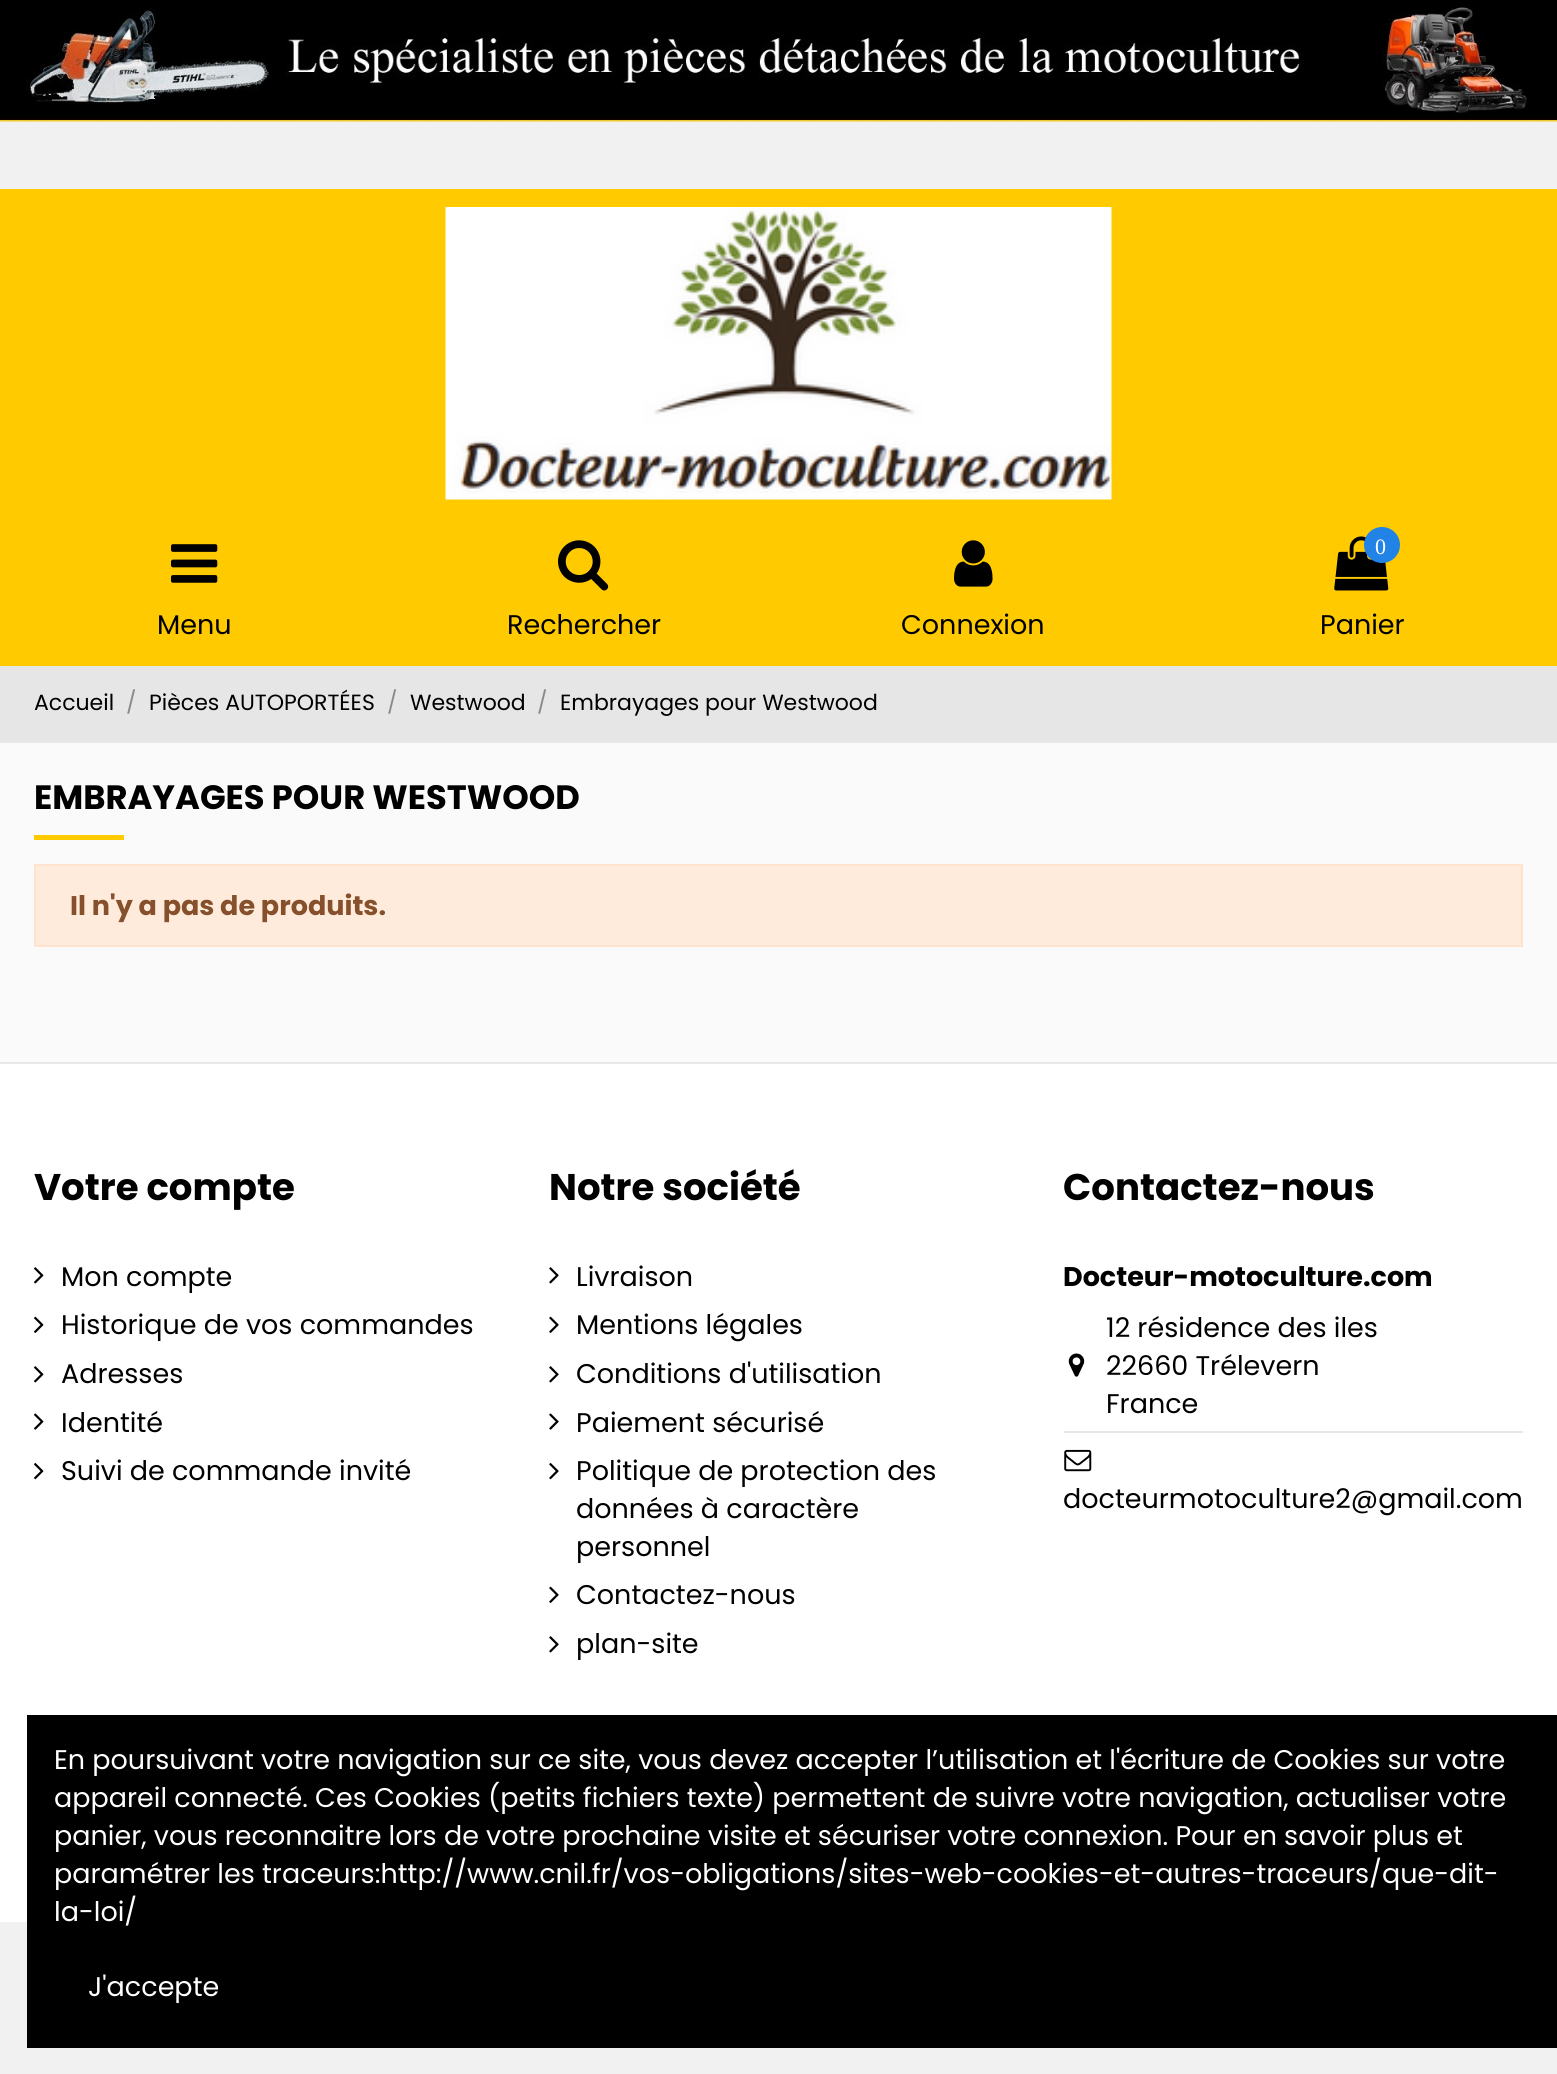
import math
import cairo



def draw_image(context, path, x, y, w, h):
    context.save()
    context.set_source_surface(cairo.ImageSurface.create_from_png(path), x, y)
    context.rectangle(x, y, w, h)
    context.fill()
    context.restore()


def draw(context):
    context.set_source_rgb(241 / 255, 241 / 255, 241 / 255)
    context.paint()
    draw_image(context, "images/1.png", 0, 0, 1557, 122)
    context.set_source_rgb(1, 203 / 255, 0)
    context.rectangle(0, 189, 1557, 477)
    context.fill()
    draw_image(context, "images/2.png", 445, 207, 667, 293)
    draw_image(context, "images/3.png", 171, 544, 47, 39)
    draw_image(context, "images/4.png", 558, 540, 51, 51)
    draw_image(context, "images/5.png", 954, 540, 39, 47)
    draw_image(context, "images/6.png", 1334, 536, 55, 55)
    context.set_source_rgb(33 / 255, 131 / 255, 230 / 255)
    context.arc(1382, 545, 18, 0, 2 * math.pi)
    context.fill()
    context.set_source_rgb(250 / 255, 250 / 255, 250 / 255)
    context.rectangle(0, 743, 1557, 319)
    context.fill()
    context.set_source_rgb(230 / 255, 230 / 255, 230 / 255)
    context.rectangle(0, 666, 1557, 77)
    context.fill()
    context.set_source_rgb(1, 203 / 255, 0)
    context.rectangle(34, 835, 90, 5)
    context.fill()
    context.set_source_rgb(1, 235 / 255, 220 / 255)
    context.rectangle(35, 865, 1487, 81)
    context.fill_preserve()
    context.set_source_rgb(1, 227 / 255, 207 / 255)
    context.stroke()
    context.set_source_rgb(1, 1, 1)
    context.rectangle(0, 1064, 1557, 858)
    context.fill()
    context.set_source_rgb(232 / 255, 232 / 255, 232 / 255)
    context.rectangle(0, 1062, 1557, 2)
    context.fill()
    draw_image(context, "images/7.png", 34, 1267, 10, 17)
    draw_image(context, "images/8.png", 34, 1316, 10, 17)
    draw_image(context, "images/7.png", 34, 1366, 10, 17)
    draw_image(context, "images/9.png", 34, 1413, 10, 17)
    draw_image(context, "images/10.png", 34, 1463, 10, 17)
    draw_image(context, "images/11.png", 549, 1267, 10, 17)
    draw_image(context, "images/12.png", 549, 1316, 10, 17)
    draw_image(context, "images/11.png", 549, 1366, 10, 17)
    draw_image(context, "images/13.png", 549, 1413, 10, 17)
    draw_image(context, "images/14.png", 549, 1463, 10, 17)
    draw_image(context, "images/12.png", 549, 1586, 10, 17)
    draw_image(context, "images/11.png", 549, 1636, 10, 17)
    draw_image(context, "images/15.png", 1068, 1353, 17, 24)
    context.set_source_rgb(231 / 255, 231 / 255, 231 / 255)
    context.rectangle(1064, 1431, 459, 2)
    context.fill()
    draw_image(context, "images/16.png", 1064, 1449, 28, 23)
    context.set_source_rgb(0, 0, 0)
    context.rectangle(27, 1715, 1530, 333)
    context.fill()
    context.select_font_face("Poppins")
    context.set_font_size(27)
    context.move_to(157, 634)
    context.show_text("Menu")
    context.move_to(507, 634)
    context.show_text("Rechercher")
    context.move_to(901, 634)
    context.show_text("Connexion")
    context.select_font_face("Liberation Serif")
    context.set_font_size(22)
    context.set_source_rgb(1, 1, 1)
    context.move_to(1375, 554)
    context.show_text("0")
    context.select_font_face("Poppins")
    context.set_font_size(27)
    context.set_source_rgb(0, 0, 0)
    context.move_to(1320, 634)
    context.show_text("Panier")
    context.set_font_size(22)
    context.move_to(34, 710)
    context.show_text("Accueil")
    context.set_source_rgb(138 / 255, 138 / 255, 138 / 255)
    context.move_to(126, 710)
    context.show_text("/")
    context.set_source_rgb(0, 0, 0)
    context.move_to(149, 710)
    context.show_text("Pièces AUTOPORTÉES")
    context.set_source_rgb(138 / 255, 138 / 255, 138 / 255)
    context.move_to(387, 710)
    context.show_text("/")
    context.set_source_rgb(0, 0, 0)
    context.move_to(410, 710)
    context.show_text("Westwood")
    context.set_source_rgb(138 / 255, 138 / 255, 138 / 255)
    context.move_to(537, 710)
    context.show_text("/")
    context.set_source_rgb(0, 0, 0)
    context.move_to(560, 710)
    context.show_text("Embrayages pour Westwood")
    context.select_font_face("Poppins", cairo.FontSlant.NORMAL, cairo.FontWeight.BOLD)
    context.set_font_size(33.75)
    context.move_to(34, 809)
    context.show_text("EMBRAYAGES POUR WESTWOOD")
    context.set_font_size(27)
    context.set_source_rgb(133 / 255, 80 / 255, 43 / 255)
    context.move_to(70, 915)
    context.show_text("Il n'y a pas de produits.")
    context.set_font_size(37.1)
    context.set_source_rgb(0, 0, 0)
    context.move_to(34, 1200)
    context.show_text("Votre compte")
    context.select_font_face("Poppins")
    context.set_font_size(27)
    context.move_to(61, 1286)
    context.show_text("Mon compte")
    context.move_to(61, 1334)
    context.show_text("Historique de vos commandes")
    context.move_to(61, 1383)
    context.show_text("Adresses")
    context.move_to(61, 1432)
    context.show_text("Identité")
    context.move_to(61, 1480)
    context.show_text("Suivi de commande invité")
    context.select_font_face("Poppins", cairo.FontSlant.NORMAL, cairo.FontWeight.BOLD)
    context.set_font_size(37.1)
    context.move_to(549, 1200)
    context.show_text("Notre société")
    context.select_font_face("Poppins")
    context.set_font_size(27)
    context.move_to(576, 1286)
    context.show_text("Livraison")
    context.move_to(576, 1334)
    context.show_text("Mentions légales")
    context.move_to(576, 1383)
    context.show_text("Conditions d'utilisation")
    context.move_to(576, 1432)
    context.show_text("Paiement sécurisé")
    context.move_to(576, 1480)
    context.show_text("Politique de protection des")
    context.move_to(576, 1518)
    context.show_text("données à caractère")
    context.move_to(576, 1556)
    context.show_text("personnel")
    context.move_to(576, 1604)
    context.show_text("Contactez-nous")
    context.move_to(576, 1653)
    context.show_text("plan-site")
    context.select_font_face("Poppins", cairo.FontSlant.NORMAL, cairo.FontWeight.BOLD)
    context.set_font_size(37.1)
    context.move_to(1063, 1200)
    context.show_text("Contactez-nous")
    context.set_font_size(27)
    context.move_to(1063, 1286)
    context.show_text("Docteur-motoculture.com")
    context.select_font_face("Poppins")
    context.move_to(1106, 1337)
    context.show_text("12 résidence des iles")
    context.move_to(1106, 1375)
    context.show_text("22660 Trélevern")
    context.move_to(1106, 1413)
    context.show_text("France")
    context.move_to(1063, 1508)
    context.show_text("docteurmotoculture2@gmail.com")
    context.set_source_rgb(1, 1, 1)
    context.move_to(54, 1769)
    context.show_text("En poursuivant votre navigation sur ce site, vous devez accepter l’utilisation et l'écriture de Cookies sur votre")
    context.move_to(54, 1807)
    context.show_text("appareil connecté. Ces Cookies (petits fichiers texte) permettent de suivre votre navigation, actualiser votre")
    context.move_to(54, 1845)
    context.show_text("panier, vous reconnaitre lors de votre prochaine visite et sécuriser votre connexion. Pour en savoir plus et")
    context.move_to(54, 1883)
    context.show_text("paramétrer les traceurs:http://www.cnil.fr/vos-obligations/sites-web-cookies-et-autres-traceurs/que-dit-")
    context.move_to(54, 1921)
    context.show_text("la-loi/")
    context.move_to(88, 1996)
    context.show_text("J'accepte")


surface = cairo.ImageSurface(cairo.Format.RGB24, 1557, 2074)
context = cairo.Context(surface)
options = cairo.FontOptions()
options.set_hint_metrics(cairo.HintMetrics.OFF)
options.set_hint_style(cairo.HintStyle.NONE)
context.set_font_options(options)
context.set_miter_limit(4)
draw(context)
surface.write_to_png("out.png")
